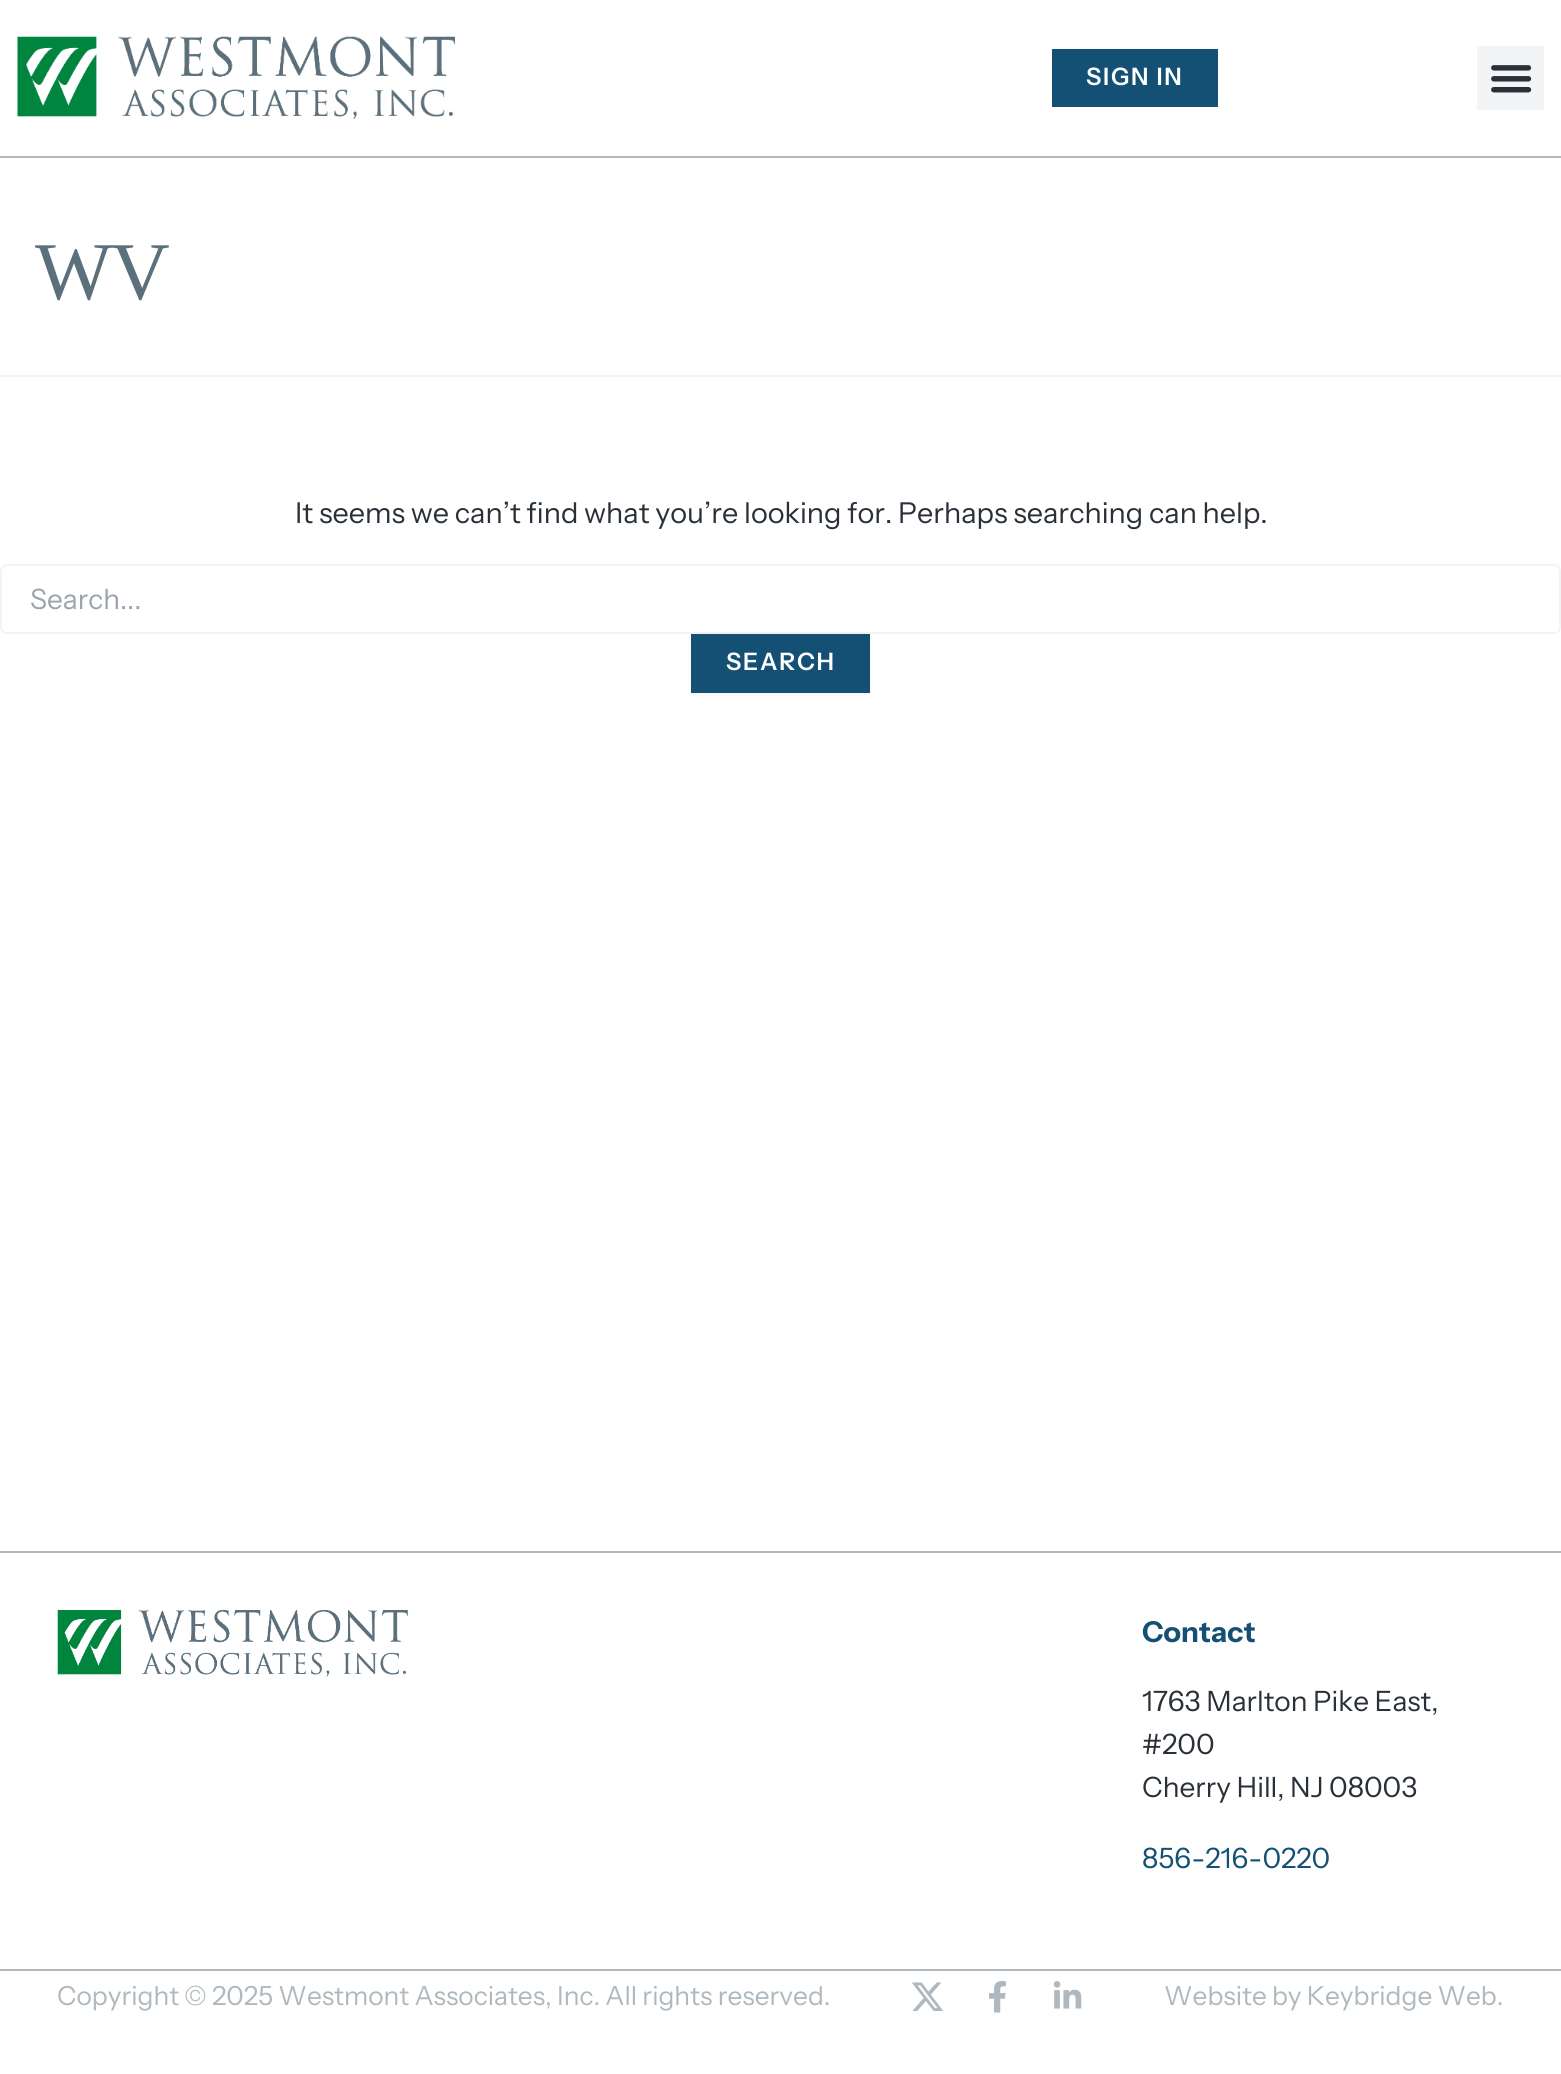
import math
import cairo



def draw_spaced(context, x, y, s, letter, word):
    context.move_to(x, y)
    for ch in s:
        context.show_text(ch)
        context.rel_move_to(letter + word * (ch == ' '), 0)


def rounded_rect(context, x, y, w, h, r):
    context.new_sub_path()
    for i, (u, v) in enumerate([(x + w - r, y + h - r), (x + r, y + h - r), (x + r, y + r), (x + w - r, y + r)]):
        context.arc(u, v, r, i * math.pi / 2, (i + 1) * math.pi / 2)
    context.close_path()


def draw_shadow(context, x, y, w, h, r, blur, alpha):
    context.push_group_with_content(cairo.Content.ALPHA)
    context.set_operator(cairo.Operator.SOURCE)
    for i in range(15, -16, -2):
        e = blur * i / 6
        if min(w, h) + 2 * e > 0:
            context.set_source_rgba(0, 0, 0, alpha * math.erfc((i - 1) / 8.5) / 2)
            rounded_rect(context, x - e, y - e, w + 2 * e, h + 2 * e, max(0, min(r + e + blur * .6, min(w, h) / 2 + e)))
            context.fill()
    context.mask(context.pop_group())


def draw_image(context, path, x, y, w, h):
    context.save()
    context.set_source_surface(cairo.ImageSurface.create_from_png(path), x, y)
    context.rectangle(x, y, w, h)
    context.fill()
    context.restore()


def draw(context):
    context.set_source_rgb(1, 1, 1)
    context.paint()
    context.set_source_rgb(174 / 255, 184 / 255, 190 / 255)
    context.rectangle(0, 156, 1561, 2)
    context.fill()
    draw_image(context, "images/1.png", 17, 36, 438, 83)
    context.set_source_rgb(20 / 255, 80 / 255, 116 / 255)
    context.rectangle(1052, 49, 166, 58)
    context.fill()
    context.set_source_rgb(242 / 255, 244 / 255, 245 / 255)
    context.rectangle(1477, 46, 67, 64)
    context.fill()
    draw_image(context, "images/2.png", 1491, 65, 41, 28)
    context.rectangle(0, 375, 1561, 2)
    context.fill()
    rounded_rect(context, 1, 565, 1559, 68, 6)
    context.stroke()
    context.set_source_rgb(0, 0, 0)
    draw_shadow(context, 691, 635, 179, 60, 0, 2, 0.05)
    context.set_source_rgb(20 / 255, 80 / 255, 116 / 255)
    context.rectangle(691, 634, 179, 59)
    context.fill()
    context.set_source_rgb(174 / 255, 184 / 255, 190 / 255)
    context.rectangle(0, 1551, 1561, 2)
    context.fill()
    draw_image(context, "images/3.png", 57, 1610, 351, 67)
    context.rectangle(0, 1969, 1561, 2)
    context.fill()
    draw_image(context, "images/4.png", 912, 1982, 31, 29)
    draw_image(context, "images/5.png", 989, 1981, 17, 32)
    draw_image(context, "images/6.png", 1053, 1981, 29, 28)
    context.select_font_face("Instrument Sans SemiBold")
    context.set_font_size(24)
    context.set_source_rgb(1, 1, 1)
    draw_spaced(context, 1086, 85, "SIGN IN", 1.75, 0)
    context.select_font_face("Liberation Serif")
    context.set_font_size(82)
    context.set_source_rgb(92 / 255, 112 / 255, 124 / 255)
    draw_spaced(context, 35, 299, "WV", -2, 0)
    context.select_font_face("Instrument Sans")
    context.set_font_size(28.75)
    context.set_source_rgb(41 / 255, 48 / 255, 56 / 255)
    context.move_to(295, 523)
    context.show_text("It seems we can’t find what you’re looking for. Perhaps searching can help.")
    context.set_font_size(28)
    context.set_source_rgb(156 / 255, 163 / 255, 175 / 255)
    context.move_to(30, 609)
    context.show_text("Search...")
    context.select_font_face("Instrument Sans SemiBold")
    context.set_font_size(24)
    context.set_source_rgb(1, 1, 1)
    draw_spaced(context, 726, 670, "SEARCH", 1.75, 0)
    context.select_font_face("Instrument Sans", cairo.FontSlant.NORMAL, cairo.FontWeight.BOLD)
    context.set_font_size(28.75)
    context.set_source_rgb(20 / 255, 80 / 255, 116 / 255)
    context.move_to(1142, 1642)
    context.show_text("Contact")
    context.select_font_face("Instrument Sans")
    context.set_font_size(28)
    context.set_source_rgb(41 / 255, 48 / 255, 56 / 255)
    context.move_to(1142, 1711)
    context.show_text("1763 Marlton Pike East,")
    context.move_to(1142, 1754)
    context.show_text("#200")
    context.move_to(1142, 1797)
    context.show_text("Cherry Hill, NJ 08003")
    context.set_source_rgb(20 / 255, 80 / 255, 116 / 255)
    context.move_to(1142, 1868)
    context.show_text("856-216-0220")
    context.set_font_size(26.25)
    context.set_source_rgb(174 / 255, 184 / 255, 190 / 255)
    context.move_to(57, 2005)
    context.show_text("Copyright © 2025 Westmont Associates, Inc. All rights reserved.")
    context.move_to(1164, 2005)
    context.show_text("Website by Keybridge Web.")


surface = cairo.ImageSurface(cairo.Format.RGB24, 1561, 2074)
context = cairo.Context(surface)
options = cairo.FontOptions()
options.set_hint_metrics(cairo.HintMetrics.OFF)
options.set_hint_style(cairo.HintStyle.NONE)
context.set_font_options(options)
context.set_miter_limit(4)
draw(context)
surface.write_to_png("out.png")
